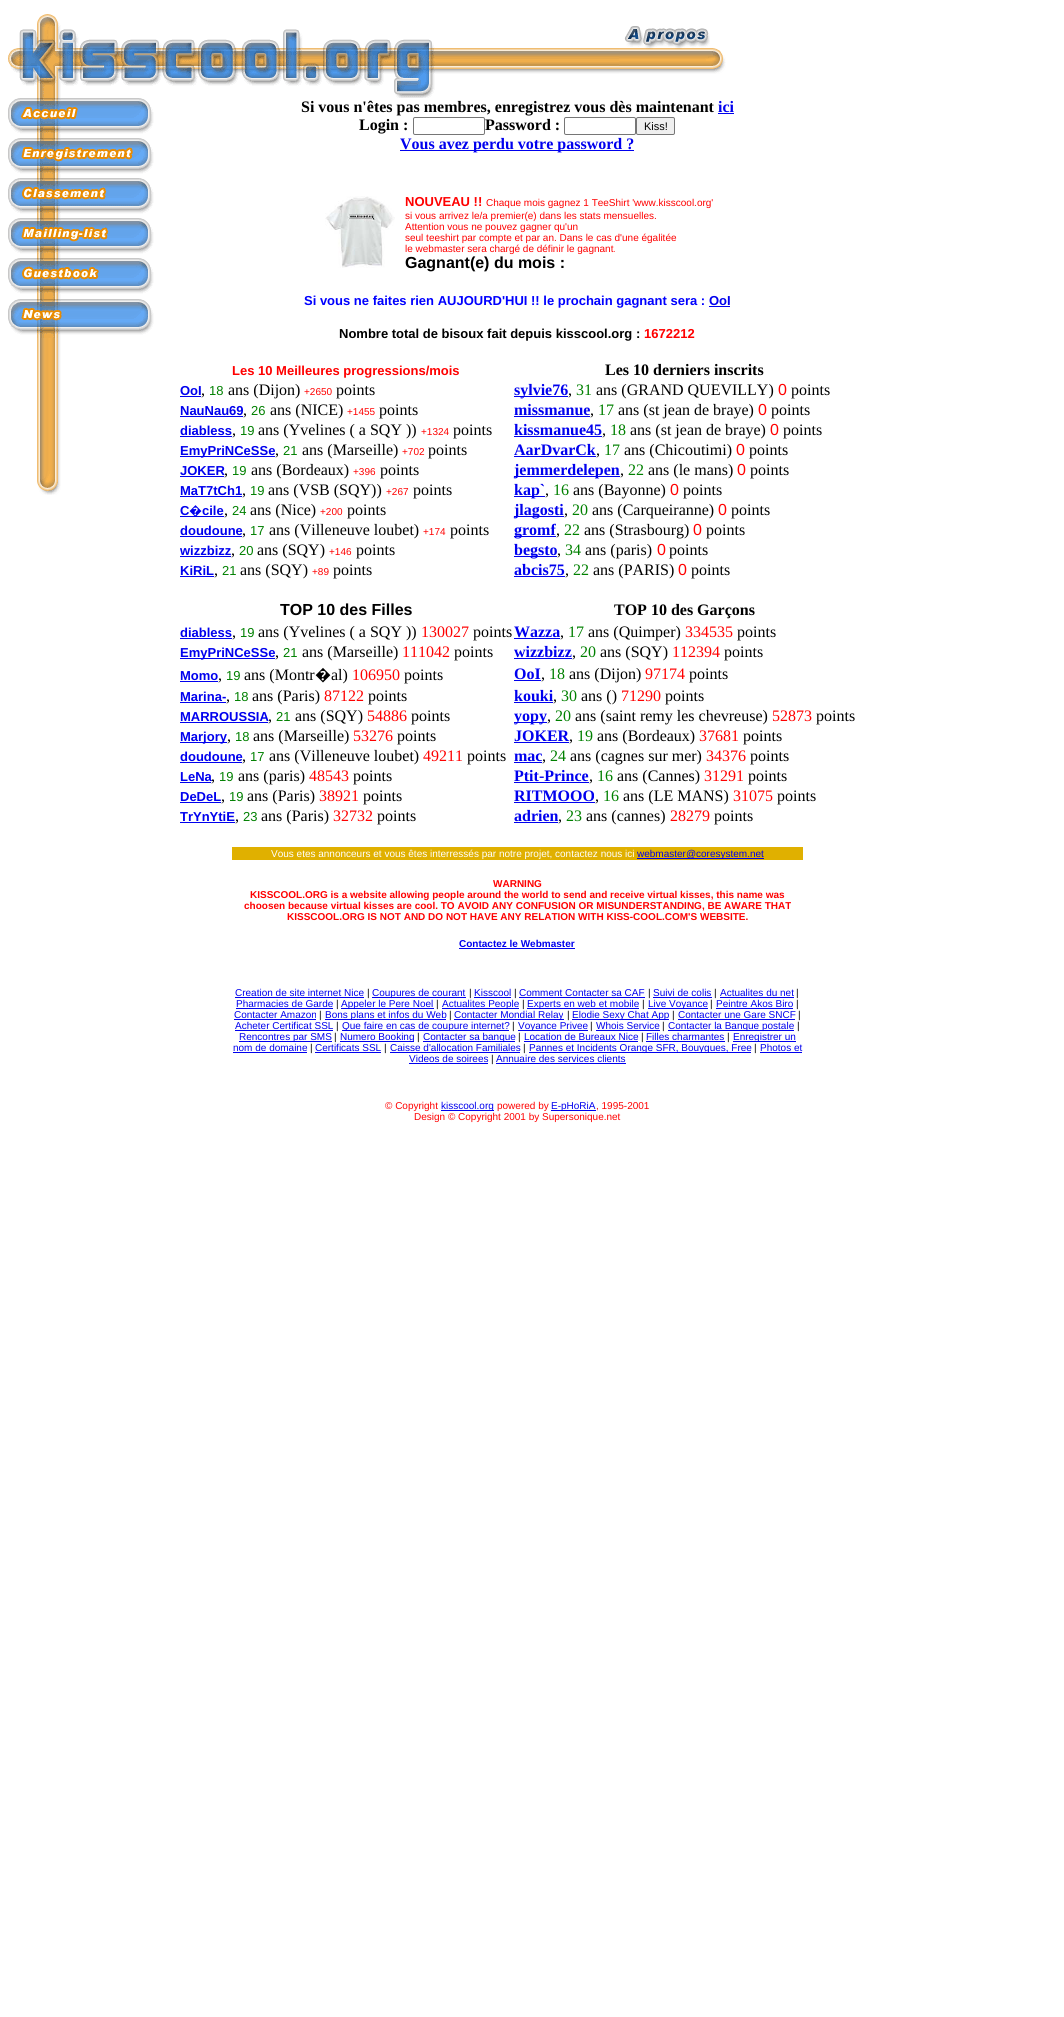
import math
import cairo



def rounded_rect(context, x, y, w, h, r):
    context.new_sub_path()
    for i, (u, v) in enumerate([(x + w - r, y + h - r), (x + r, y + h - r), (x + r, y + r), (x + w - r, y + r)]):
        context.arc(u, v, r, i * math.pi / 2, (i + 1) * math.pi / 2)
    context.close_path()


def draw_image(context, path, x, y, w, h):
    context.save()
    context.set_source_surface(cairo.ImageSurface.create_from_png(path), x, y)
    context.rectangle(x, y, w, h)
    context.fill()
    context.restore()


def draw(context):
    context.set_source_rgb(1, 1, 1)
    context.paint()
    draw_image(context, "images/1.png", 37, 14, 22, 9)
    draw_image(context, "images/2.png", 19, 23, 139, 24)
    draw_image(context, "images/3.png", 158, 29, 276, 18)
    draw_image(context, "images/4.png", 624, 26, 86, 21)
    draw_image(context, "images/5.png", 8, 47, 150, 51)
    draw_image(context, "images/6.png", 158, 47, 461, 51)
    draw_image(context, "images/7.png", 619, 47, 107, 27)
    draw_image(context, "images/8.png", 8, 98, 146, 40)
    draw_image(context, "images/9.png", 8, 138, 146, 40)
    draw_image(context, "images/10.png", 8, 178, 146, 40)
    draw_image(context, "images/11.png", 8, 218, 146, 40)
    draw_image(context, "images/12.png", 8, 258, 146, 40)
    draw_image(context, "images/13.png", 8, 298, 146, 40)
    draw_image(context, "images/14.png", 37, 338, 24, 157)
    context.set_source_rgb(0, 0, 238 / 255)
    context.rectangle(718, 113, 16, 1)
    context.fill()
    rounded_rect(context, 413.5, 117.5, 71, 17, 1.5)
    context.set_source_rgb(118 / 255, 118 / 255, 118 / 255)
    context.set_line_width(1)
    context.stroke()
    rounded_rect(context, 564.5, 117.5, 71, 17, 1.5)
    context.stroke()
    context.set_source_rgb(239 / 255, 239 / 255, 239 / 255)
    rounded_rect(context, 636.5, 117.5, 38, 17, 1.5)
    context.fill_preserve()
    context.set_source_rgb(118 / 255, 118 / 255, 118 / 255)
    context.stroke()
    context.set_source_rgb(0, 0, 238 / 255)
    context.rectangle(400, 150, 234, 1)
    context.fill()
    draw_image(context, "images/15.png", 325, 196, 70, 72)
    context.rectangle(709, 306, 21, 1)
    context.fill()
    context.rectangle(180, 396, 21, 1)
    context.fill()
    context.rectangle(514, 396, 54, 1)
    context.fill()
    context.rectangle(180, 416, 63, 1)
    context.fill()
    context.rectangle(514, 416, 76, 1)
    context.fill()
    context.rectangle(180, 436, 52, 1)
    context.fill()
    context.rectangle(514, 436, 88, 1)
    context.fill()
    context.rectangle(180, 456, 95, 1)
    context.fill()
    context.rectangle(514, 456, 82, 1)
    context.fill()
    context.rectangle(180, 476, 44, 1)
    context.fill()
    context.rectangle(514, 476, 106, 1)
    context.fill()
    context.rectangle(180, 496, 62, 1)
    context.fill()
    context.rectangle(514, 496, 31, 1)
    context.fill()
    context.rectangle(180, 516, 44, 1)
    context.fill()
    context.rectangle(514, 516, 50, 1)
    context.fill()
    context.rectangle(180, 536, 62, 1)
    context.fill()
    context.rectangle(514, 536, 42, 1)
    context.fill()
    context.rectangle(180, 556, 51, 1)
    context.fill()
    context.rectangle(514, 556, 43, 1)
    context.fill()
    context.rectangle(180, 576, 34, 1)
    context.fill()
    context.rectangle(514, 576, 51, 1)
    context.fill()
    context.rectangle(180, 638, 52, 1)
    context.fill()
    context.rectangle(514, 638, 46, 1)
    context.fill()
    context.rectangle(180, 658, 95, 1)
    context.fill()
    context.rectangle(514, 658, 58, 1)
    context.fill()
    context.rectangle(180, 681, 38, 1)
    context.fill()
    context.rectangle(514, 680, 27, 1)
    context.fill()
    context.rectangle(180, 702, 46, 1)
    context.fill()
    context.rectangle(514, 702, 39, 1)
    context.fill()
    context.rectangle(180, 722, 88, 1)
    context.fill()
    context.rectangle(514, 722, 33, 1)
    context.fill()
    context.rectangle(180, 742, 47, 1)
    context.fill()
    context.rectangle(514, 742, 55, 1)
    context.fill()
    context.rectangle(180, 762, 62, 1)
    context.fill()
    context.rectangle(514, 762, 28, 1)
    context.fill()
    context.rectangle(180, 782, 31, 1)
    context.fill()
    context.rectangle(514, 782, 75, 1)
    context.fill()
    context.rectangle(180, 802, 41, 1)
    context.fill()
    context.rectangle(514, 802, 81, 1)
    context.fill()
    context.rectangle(180, 822, 55, 1)
    context.fill()
    context.rectangle(514, 822, 44, 1)
    context.fill()
    context.set_source_rgb(224 / 255, 176 / 255, 0)
    context.rectangle(232, 847, 571, 13)
    context.fill()
    context.set_source_rgb(0, 0, 238 / 255)
    context.rectangle(637, 858, 127, 1)
    context.fill()
    context.rectangle(459, 948, 116, 1)
    context.fill()
    context.rectangle(235, 997, 129, 1)
    context.fill()
    context.rectangle(372, 997, 94, 1)
    context.fill()
    context.rectangle(474, 997, 37, 1)
    context.fill()
    context.rectangle(519, 997, 126, 1)
    context.fill()
    context.rectangle(653, 997, 59, 1)
    context.fill()
    context.rectangle(720, 997, 74, 1)
    context.fill()
    context.rectangle(236, 1008, 97, 1)
    context.fill()
    context.rectangle(341, 1008, 93, 1)
    context.fill()
    context.rectangle(442, 1008, 77, 1)
    context.fill()
    context.rectangle(527, 1008, 112, 1)
    context.fill()
    context.rectangle(648, 1008, 60, 1)
    context.fill()
    context.rectangle(716, 1008, 77, 1)
    context.fill()
    context.rectangle(234, 1019, 82, 1)
    context.fill()
    context.rectangle(325, 1019, 121, 1)
    context.fill()
    context.rectangle(454, 1019, 110, 1)
    context.fill()
    context.rectangle(572, 1019, 97, 1)
    context.fill()
    context.rectangle(678, 1019, 117, 1)
    context.fill()
    context.rectangle(235, 1030, 98, 1)
    context.fill()
    context.rectangle(342, 1030, 167, 1)
    context.fill()
    context.rectangle(518, 1030, 70, 1)
    context.fill()
    context.rectangle(596, 1030, 64, 1)
    context.fill()
    context.rectangle(668, 1030, 126, 1)
    context.fill()
    context.rectangle(239, 1041, 93, 1)
    context.fill()
    context.rectangle(340, 1041, 74, 1)
    context.fill()
    context.rectangle(423, 1041, 92, 1)
    context.fill()
    context.rectangle(524, 1041, 114, 1)
    context.fill()
    context.rectangle(646, 1041, 79, 1)
    context.fill()
    context.rectangle(733, 1041, 63, 1)
    context.fill()
    context.rectangle(233, 1052, 74, 1)
    context.fill()
    context.rectangle(315, 1052, 66, 1)
    context.fill()
    context.rectangle(390, 1052, 130, 1)
    context.fill()
    context.rectangle(529, 1052, 222, 1)
    context.fill()
    context.rectangle(760, 1052, 42, 1)
    context.fill()
    context.rectangle(409, 1063, 79, 1)
    context.fill()
    context.rectangle(496, 1063, 130, 1)
    context.fill()
    context.rectangle(441, 1110, 53, 1)
    context.fill()
    context.rectangle(551, 1110, 45, 1)
    context.fill()
    context.select_font_face("Liberation Serif", cairo.FontSlant.NORMAL, cairo.FontWeight.BOLD)
    context.set_font_size(16)
    context.set_source_rgb(0, 0, 0)
    context.move_to(301, 112)
    context.show_text("Si vous n'êtes pas membres, enregistrez vous dès maintenant")
    context.set_source_rgb(0, 0, 238 / 255)
    context.move_to(718, 112)
    context.show_text("ici")
    context.set_source_rgb(0, 0, 0)
    context.move_to(359, 130)
    context.show_text("Login :")
    context.move_to(485, 130)
    context.show_text("Password :")
    context.select_font_face("Liberation Sans")
    context.set_font_size(11)
    context.move_to(644, 130)
    context.show_text("Kiss!")
    context.select_font_face("Liberation Serif", cairo.FontSlant.NORMAL, cairo.FontWeight.BOLD)
    context.set_font_size(16)
    context.set_source_rgb(0, 0, 238 / 255)
    context.move_to(400, 149)
    context.show_text("Vous avez perdu votre password ?")
    context.select_font_face("Liberation Sans", cairo.FontSlant.NORMAL, cairo.FontWeight.BOLD)
    context.set_font_size(13)
    context.set_source_rgb(1, 0, 0)
    context.move_to(405, 206)
    context.show_text("NOUVEAU !!")
    context.select_font_face("Liberation Sans")
    context.set_font_size(10)
    context.move_to(486, 206)
    context.show_text("Chaque mois gagnez 1 TeeShirt 'www.kisscool.org'")
    context.move_to(405, 219)
    context.show_text("si vous arrivez le/a premier(e) dans les stats mensuelles.")
    context.move_to(405, 230)
    context.show_text("Attention vous ne pouvez gagner qu'un")
    context.move_to(405, 241)
    context.show_text("seul teeshirt par compte et par an. Dans le cas d'une égalitée")
    context.move_to(405, 252)
    context.show_text("le webmaster sera chargé de définir le gagnant.")
    context.select_font_face("Liberation Sans", cairo.FontSlant.NORMAL, cairo.FontWeight.BOLD)
    context.set_font_size(16)
    context.set_source_rgb(0, 0, 0)
    context.move_to(405, 268)
    context.show_text("Gagnant(e) du mois :")
    context.set_font_size(13)
    context.set_source_rgb(0, 0, 1)
    context.move_to(304, 305)
    context.show_text("Si vous ne faites rien AUJOURD'HUI !! le prochain gagnant sera :")
    context.set_source_rgb(0, 0, 238 / 255)
    context.move_to(709, 305)
    context.show_text("OoI")
    context.set_source_rgb(0, 0, 0)
    context.move_to(339, 338)
    context.show_text("Nombre total de bisoux fait depuis kisscool.org :")
    context.set_source_rgb(1, 0, 0)
    context.move_to(644, 338)
    context.show_text("1672212")
    context.move_to(232, 375)
    context.show_text("Les 10 Meilleures progressions/mois")
    context.select_font_face("Liberation Serif", cairo.FontSlant.NORMAL, cairo.FontWeight.BOLD)
    context.set_font_size(16)
    context.set_source_rgb(0, 0, 0)
    context.move_to(605, 375)
    context.show_text("Les 10 derniers inscrits")
    context.select_font_face("Liberation Sans", cairo.FontSlant.NORMAL, cairo.FontWeight.BOLD)
    context.set_font_size(13)
    context.set_source_rgb(0, 0, 238 / 255)
    context.move_to(180, 395)
    context.show_text("OoI")
    context.select_font_face("Liberation Serif")
    context.set_font_size(16)
    context.set_source_rgb(0, 0, 0)
    context.move_to(201, 395)
    context.show_text(",")
    context.select_font_face("Liberation Sans")
    context.set_font_size(13)
    context.set_source_rgb(0, 128 / 255, 0)
    context.move_to(209, 395)
    context.show_text("18")
    context.select_font_face("Liberation Serif")
    context.set_font_size(16)
    context.set_source_rgb(0, 0, 0)
    context.move_to(228, 395)
    context.show_text("ans (Dijon)")
    context.select_font_face("Liberation Sans")
    context.set_font_size(10)
    context.set_source_rgb(1, 0, 0)
    context.move_to(304, 395)
    context.show_text("+2650")
    context.select_font_face("Liberation Serif")
    context.set_font_size(16)
    context.set_source_rgb(0, 0, 0)
    context.move_to(336, 395)
    context.show_text("points")
    context.select_font_face("Liberation Serif", cairo.FontSlant.NORMAL, cairo.FontWeight.BOLD)
    context.set_source_rgb(0, 0, 238 / 255)
    context.move_to(514, 395)
    context.show_text("sylvie76")
    context.select_font_face("Liberation Serif")
    context.set_source_rgb(0, 0, 0)
    context.move_to(568, 395)
    context.show_text(",")
    context.set_source_rgb(0, 128 / 255, 0)
    context.move_to(576, 395)
    context.show_text("31")
    context.set_source_rgb(0, 0, 0)
    context.move_to(596, 395)
    context.show_text("ans (GRAND QUEVILLY)")
    context.select_font_face("Liberation Sans")
    context.set_source_rgb(1, 0, 0)
    context.move_to(778, 395)
    context.show_text("0")
    context.select_font_face("Liberation Serif")
    context.set_source_rgb(0, 0, 0)
    context.move_to(791, 395)
    context.show_text("points")
    context.select_font_face("Liberation Sans", cairo.FontSlant.NORMAL, cairo.FontWeight.BOLD)
    context.set_font_size(13)
    context.set_source_rgb(0, 0, 238 / 255)
    context.move_to(180, 415)
    context.show_text("NauNau69")
    context.select_font_face("Liberation Serif")
    context.set_font_size(16)
    context.set_source_rgb(0, 0, 0)
    context.move_to(243, 415)
    context.show_text(",")
    context.select_font_face("Liberation Sans")
    context.set_font_size(13)
    context.set_source_rgb(0, 128 / 255, 0)
    context.move_to(251, 415)
    context.show_text("26")
    context.select_font_face("Liberation Serif")
    context.set_font_size(16)
    context.set_source_rgb(0, 0, 0)
    context.move_to(270, 415)
    context.show_text("ans (NICE)")
    context.select_font_face("Liberation Sans")
    context.set_font_size(10)
    context.set_source_rgb(1, 0, 0)
    context.move_to(347, 415)
    context.show_text("+1455")
    context.select_font_face("Liberation Serif")
    context.set_font_size(16)
    context.set_source_rgb(0, 0, 0)
    context.move_to(379, 415)
    context.show_text("points")
    context.select_font_face("Liberation Serif", cairo.FontSlant.NORMAL, cairo.FontWeight.BOLD)
    context.set_source_rgb(0, 0, 238 / 255)
    context.move_to(514, 415)
    context.show_text("missmanue")
    context.select_font_face("Liberation Serif")
    context.set_source_rgb(0, 0, 0)
    context.move_to(590, 415)
    context.show_text(",")
    context.set_source_rgb(0, 128 / 255, 0)
    context.move_to(598, 415)
    context.show_text("17")
    context.set_source_rgb(0, 0, 0)
    context.move_to(618, 415)
    context.show_text("ans (st jean de braye)")
    context.select_font_face("Liberation Sans")
    context.set_source_rgb(1, 0, 0)
    context.move_to(758, 415)
    context.show_text("0")
    context.select_font_face("Liberation Serif")
    context.set_source_rgb(0, 0, 0)
    context.move_to(771, 415)
    context.show_text("points")
    context.select_font_face("Liberation Sans", cairo.FontSlant.NORMAL, cairo.FontWeight.BOLD)
    context.set_font_size(13)
    context.set_source_rgb(0, 0, 238 / 255)
    context.move_to(180, 435)
    context.show_text("diabless")
    context.select_font_face("Liberation Serif")
    context.set_font_size(16)
    context.set_source_rgb(0, 0, 0)
    context.move_to(232, 435)
    context.show_text(",")
    context.select_font_face("Liberation Sans")
    context.set_font_size(13)
    context.set_source_rgb(0, 128 / 255, 0)
    context.move_to(240, 435)
    context.show_text("19")
    context.select_font_face("Liberation Serif")
    context.set_font_size(16)
    context.set_source_rgb(0, 0, 0)
    context.move_to(258, 435)
    context.show_text("ans (Yvelines ( a SQY ))")
    context.select_font_face("Liberation Sans")
    context.set_font_size(10)
    context.set_source_rgb(1, 0, 0)
    context.move_to(421, 435)
    context.show_text("+1324")
    context.select_font_face("Liberation Serif")
    context.set_font_size(16)
    context.set_source_rgb(0, 0, 0)
    context.move_to(453, 435)
    context.show_text("points")
    context.select_font_face("Liberation Serif", cairo.FontSlant.NORMAL, cairo.FontWeight.BOLD)
    context.set_source_rgb(0, 0, 238 / 255)
    context.move_to(514, 435)
    context.show_text("kissmanue45")
    context.select_font_face("Liberation Serif")
    context.set_source_rgb(0, 0, 0)
    context.move_to(602, 435)
    context.show_text(",")
    context.set_source_rgb(0, 128 / 255, 0)
    context.move_to(610, 435)
    context.show_text("18")
    context.set_source_rgb(0, 0, 0)
    context.move_to(630, 435)
    context.show_text("ans (st jean de braye)")
    context.select_font_face("Liberation Sans")
    context.set_source_rgb(1, 0, 0)
    context.move_to(770, 435)
    context.show_text("0")
    context.select_font_face("Liberation Serif")
    context.set_source_rgb(0, 0, 0)
    context.move_to(783, 435)
    context.show_text("points")
    context.select_font_face("Liberation Sans", cairo.FontSlant.NORMAL, cairo.FontWeight.BOLD)
    context.set_font_size(13)
    context.set_source_rgb(0, 0, 238 / 255)
    context.move_to(180, 455)
    context.show_text("EmyPriNCeSSe")
    context.select_font_face("Liberation Serif")
    context.set_font_size(16)
    context.set_source_rgb(0, 0, 0)
    context.move_to(275, 455)
    context.show_text(",")
    context.select_font_face("Liberation Sans")
    context.set_font_size(13)
    context.set_source_rgb(0, 128 / 255, 0)
    context.move_to(283, 455)
    context.show_text("21")
    context.select_font_face("Liberation Serif")
    context.set_font_size(16)
    context.set_source_rgb(0, 0, 0)
    context.move_to(302, 455)
    context.show_text("ans (Marseille)")
    context.select_font_face("Liberation Sans")
    context.set_font_size(10)
    context.set_source_rgb(1, 0, 0)
    context.move_to(402, 455)
    context.show_text("+702")
    context.select_font_face("Liberation Serif")
    context.set_font_size(16)
    context.set_source_rgb(0, 0, 0)
    context.move_to(428, 455)
    context.show_text("points")
    context.select_font_face("Liberation Serif", cairo.FontSlant.NORMAL, cairo.FontWeight.BOLD)
    context.set_source_rgb(0, 0, 238 / 255)
    context.move_to(514, 455)
    context.show_text("AarDvarCk")
    context.select_font_face("Liberation Serif")
    context.set_source_rgb(0, 0, 0)
    context.move_to(596, 455)
    context.show_text(",")
    context.set_source_rgb(0, 128 / 255, 0)
    context.move_to(604, 455)
    context.show_text("17")
    context.set_source_rgb(0, 0, 0)
    context.move_to(624, 455)
    context.show_text("ans (Chicoutimi)")
    context.select_font_face("Liberation Sans")
    context.set_source_rgb(1, 0, 0)
    context.move_to(736, 455)
    context.show_text("0")
    context.select_font_face("Liberation Serif")
    context.set_source_rgb(0, 0, 0)
    context.move_to(749, 455)
    context.show_text("points")
    context.select_font_face("Liberation Sans", cairo.FontSlant.NORMAL, cairo.FontWeight.BOLD)
    context.set_font_size(13)
    context.set_source_rgb(0, 0, 238 / 255)
    context.move_to(180, 475)
    context.show_text("JOKER")
    context.select_font_face("Liberation Serif")
    context.set_font_size(16)
    context.set_source_rgb(0, 0, 0)
    context.move_to(224, 475)
    context.show_text(",")
    context.select_font_face("Liberation Sans")
    context.set_font_size(13)
    context.set_source_rgb(0, 128 / 255, 0)
    context.move_to(232, 475)
    context.show_text("19")
    context.select_font_face("Liberation Serif")
    context.set_font_size(16)
    context.set_source_rgb(0, 0, 0)
    context.move_to(251, 475)
    context.show_text("ans (Bordeaux)")
    context.select_font_face("Liberation Sans")
    context.set_font_size(10)
    context.set_source_rgb(1, 0, 0)
    context.move_to(353, 475)
    context.show_text("+396")
    context.select_font_face("Liberation Serif")
    context.set_font_size(16)
    context.set_source_rgb(0, 0, 0)
    context.move_to(380, 475)
    context.show_text("points")
    context.select_font_face("Liberation Serif", cairo.FontSlant.NORMAL, cairo.FontWeight.BOLD)
    context.set_source_rgb(0, 0, 238 / 255)
    context.move_to(514, 475)
    context.show_text("jemmerdelepen")
    context.select_font_face("Liberation Serif")
    context.set_source_rgb(0, 0, 0)
    context.move_to(620, 475)
    context.show_text(",")
    context.set_source_rgb(0, 128 / 255, 0)
    context.move_to(628, 475)
    context.show_text("22")
    context.set_source_rgb(0, 0, 0)
    context.move_to(648, 475)
    context.show_text("ans (le mans)")
    context.select_font_face("Liberation Sans")
    context.set_source_rgb(1, 0, 0)
    context.move_to(737, 475)
    context.show_text("0")
    context.select_font_face("Liberation Serif")
    context.set_source_rgb(0, 0, 0)
    context.move_to(750, 475)
    context.show_text("points")
    context.select_font_face("Liberation Sans", cairo.FontSlant.NORMAL, cairo.FontWeight.BOLD)
    context.set_font_size(13)
    context.set_source_rgb(0, 0, 238 / 255)
    context.move_to(180, 495)
    context.show_text("MaT7tCh1")
    context.select_font_face("Liberation Serif")
    context.set_font_size(16)
    context.set_source_rgb(0, 0, 0)
    context.move_to(242, 495)
    context.show_text(",")
    context.select_font_face("Liberation Sans")
    context.set_font_size(13)
    context.set_source_rgb(0, 128 / 255, 0)
    context.move_to(250, 495)
    context.show_text("19")
    context.select_font_face("Liberation Serif")
    context.set_font_size(16)
    context.set_source_rgb(0, 0, 0)
    context.move_to(268, 495)
    context.show_text("ans (VSB (SQY))")
    context.select_font_face("Liberation Sans")
    context.set_font_size(10)
    context.set_source_rgb(1, 0, 0)
    context.move_to(386, 495)
    context.show_text("+267")
    context.select_font_face("Liberation Serif")
    context.set_font_size(16)
    context.set_source_rgb(0, 0, 0)
    context.move_to(413, 495)
    context.show_text("points")
    context.select_font_face("Liberation Serif", cairo.FontSlant.NORMAL, cairo.FontWeight.BOLD)
    context.set_source_rgb(0, 0, 238 / 255)
    context.move_to(514, 495)
    context.show_text("kap`")
    context.select_font_face("Liberation Serif")
    context.set_source_rgb(0, 0, 0)
    context.move_to(545, 495)
    context.show_text(",")
    context.set_source_rgb(0, 128 / 255, 0)
    context.move_to(553, 495)
    context.show_text("16")
    context.set_source_rgb(0, 0, 0)
    context.move_to(573, 495)
    context.show_text("ans (Bayonne)")
    context.select_font_face("Liberation Sans")
    context.set_source_rgb(1, 0, 0)
    context.move_to(670, 495)
    context.show_text("0")
    context.select_font_face("Liberation Serif")
    context.set_source_rgb(0, 0, 0)
    context.move_to(683, 495)
    context.show_text("points")
    context.select_font_face("Liberation Sans", cairo.FontSlant.NORMAL, cairo.FontWeight.BOLD)
    context.set_font_size(13)
    context.set_source_rgb(0, 0, 238 / 255)
    context.move_to(180, 515)
    context.show_text("C")
    context.select_font_face("Noto Sans", cairo.FontSlant.NORMAL, cairo.FontWeight.BOLD)
    context.move_to(189, 515)
    context.show_text("�")
    context.select_font_face("Liberation Sans", cairo.FontSlant.NORMAL, cairo.FontWeight.BOLD)
    context.move_to(202, 515)
    context.show_text("cile")
    context.select_font_face("Liberation Serif")
    context.set_font_size(16)
    context.set_source_rgb(0, 0, 0)
    context.move_to(224, 515)
    context.show_text(",")
    context.select_font_face("Liberation Sans")
    context.set_font_size(13)
    context.set_source_rgb(0, 128 / 255, 0)
    context.move_to(232, 515)
    context.show_text("24")
    context.select_font_face("Liberation Serif")
    context.set_font_size(16)
    context.set_source_rgb(0, 0, 0)
    context.move_to(250, 515)
    context.show_text("ans (Nice)")
    context.select_font_face("Liberation Sans")
    context.set_font_size(10)
    context.set_source_rgb(1, 0, 0)
    context.move_to(320, 515)
    context.show_text("+200")
    context.select_font_face("Liberation Serif")
    context.set_font_size(16)
    context.set_source_rgb(0, 0, 0)
    context.move_to(347, 515)
    context.show_text("points")
    context.select_font_face("Liberation Serif", cairo.FontSlant.NORMAL, cairo.FontWeight.BOLD)
    context.set_source_rgb(0, 0, 238 / 255)
    context.move_to(514, 515)
    context.show_text("jlagosti")
    context.select_font_face("Liberation Serif")
    context.set_source_rgb(0, 0, 0)
    context.move_to(564, 515)
    context.show_text(",")
    context.set_source_rgb(0, 128 / 255, 0)
    context.move_to(572, 515)
    context.show_text("20")
    context.set_source_rgb(0, 0, 0)
    context.move_to(592, 515)
    context.show_text("ans (Carqueiranne)")
    context.select_font_face("Liberation Sans")
    context.set_source_rgb(1, 0, 0)
    context.move_to(718, 515)
    context.show_text("0")
    context.select_font_face("Liberation Serif")
    context.set_source_rgb(0, 0, 0)
    context.move_to(731, 515)
    context.show_text("points")
    context.select_font_face("Liberation Sans", cairo.FontSlant.NORMAL, cairo.FontWeight.BOLD)
    context.set_font_size(13)
    context.set_source_rgb(0, 0, 238 / 255)
    context.move_to(180, 535)
    context.show_text("doudoune")
    context.select_font_face("Liberation Sans")
    context.set_source_rgb(0, 128 / 255, 0)
    context.move_to(250, 535)
    context.show_text("17")
    context.select_font_face("Liberation Serif")
    context.set_font_size(16)
    context.set_source_rgb(0, 0, 0)
    context.move_to(269, 535)
    context.show_text("ans (Villeneuve loubet)")
    context.select_font_face("Liberation Sans")
    context.set_font_size(10)
    context.set_source_rgb(1, 0, 0)
    context.move_to(423, 535)
    context.show_text("+174")
    context.select_font_face("Liberation Serif")
    context.set_font_size(16)
    context.set_source_rgb(0, 0, 0)
    context.move_to(450, 535)
    context.show_text("points")
    context.move_to(242, 535)
    context.show_text(",")
    context.select_font_face("Liberation Serif", cairo.FontSlant.NORMAL, cairo.FontWeight.BOLD)
    context.set_source_rgb(0, 0, 238 / 255)
    context.move_to(514, 535)
    context.show_text("gromf")
    context.select_font_face("Liberation Serif")
    context.set_source_rgb(0, 0, 0)
    context.move_to(556, 535)
    context.show_text(",")
    context.set_source_rgb(0, 128 / 255, 0)
    context.move_to(564, 535)
    context.show_text("22")
    context.set_source_rgb(0, 0, 0)
    context.move_to(584, 535)
    context.show_text("ans (Strasbourg)")
    context.select_font_face("Liberation Sans")
    context.set_source_rgb(1, 0, 0)
    context.move_to(693, 535)
    context.show_text("0")
    context.select_font_face("Liberation Serif")
    context.set_source_rgb(0, 0, 0)
    context.move_to(706, 535)
    context.show_text("points")
    context.select_font_face("Liberation Sans", cairo.FontSlant.NORMAL, cairo.FontWeight.BOLD)
    context.set_font_size(13)
    context.set_source_rgb(0, 0, 238 / 255)
    context.move_to(180, 555)
    context.show_text("wizzbizz")
    context.select_font_face("Liberation Serif")
    context.set_font_size(16)
    context.set_source_rgb(0, 0, 0)
    context.move_to(231, 555)
    context.show_text(",")
    context.select_font_face("Liberation Sans")
    context.set_font_size(13)
    context.set_source_rgb(0, 128 / 255, 0)
    context.move_to(239, 555)
    context.show_text("20")
    context.select_font_face("Liberation Serif")
    context.set_font_size(16)
    context.set_source_rgb(0, 0, 0)
    context.move_to(257, 555)
    context.show_text("ans (SQY)")
    context.select_font_face("Liberation Sans")
    context.set_font_size(10)
    context.set_source_rgb(1, 0, 0)
    context.move_to(329, 555)
    context.show_text("+146")
    context.select_font_face("Liberation Serif")
    context.set_font_size(16)
    context.set_source_rgb(0, 0, 0)
    context.move_to(356, 555)
    context.show_text("points")
    context.select_font_face("Liberation Serif", cairo.FontSlant.NORMAL, cairo.FontWeight.BOLD)
    context.set_source_rgb(0, 0, 238 / 255)
    context.move_to(514, 555)
    context.show_text("begsto")
    context.select_font_face("Liberation Serif")
    context.set_source_rgb(0, 0, 0)
    context.move_to(557, 555)
    context.show_text(",")
    context.set_source_rgb(0, 128 / 255, 0)
    context.move_to(565, 555)
    context.show_text("34")
    context.set_source_rgb(0, 0, 0)
    context.move_to(585, 555)
    context.show_text("ans (paris)")
    context.select_font_face("Liberation Sans")
    context.set_source_rgb(1, 0, 0)
    context.move_to(657, 555)
    context.show_text("0")
    context.select_font_face("Liberation Serif")
    context.set_source_rgb(0, 0, 0)
    context.move_to(669, 555)
    context.show_text("points")
    context.select_font_face("Liberation Sans", cairo.FontSlant.NORMAL, cairo.FontWeight.BOLD)
    context.set_font_size(13)
    context.set_source_rgb(0, 0, 238 / 255)
    context.move_to(180, 575)
    context.show_text("KiRiL")
    context.select_font_face("Liberation Serif")
    context.set_font_size(16)
    context.set_source_rgb(0, 0, 0)
    context.move_to(214, 575)
    context.show_text(",")
    context.select_font_face("Liberation Sans")
    context.set_font_size(13)
    context.set_source_rgb(0, 128 / 255, 0)
    context.move_to(222, 575)
    context.show_text("21")
    context.select_font_face("Liberation Serif")
    context.set_font_size(16)
    context.set_source_rgb(0, 0, 0)
    context.move_to(240, 575)
    context.show_text("ans (SQY)")
    context.select_font_face("Liberation Sans")
    context.set_font_size(10)
    context.set_source_rgb(1, 0, 0)
    context.move_to(312, 575)
    context.show_text("+89")
    context.select_font_face("Liberation Serif")
    context.set_font_size(16)
    context.set_source_rgb(0, 0, 0)
    context.move_to(333, 575)
    context.show_text("points")
    context.select_font_face("Liberation Serif", cairo.FontSlant.NORMAL, cairo.FontWeight.BOLD)
    context.set_source_rgb(0, 0, 238 / 255)
    context.move_to(514, 575)
    context.show_text("abcis75")
    context.select_font_face("Liberation Serif")
    context.set_source_rgb(0, 0, 0)
    context.move_to(565, 575)
    context.show_text(",")
    context.set_source_rgb(0, 128 / 255, 0)
    context.move_to(573, 575)
    context.show_text("22")
    context.set_source_rgb(0, 0, 0)
    context.move_to(593, 575)
    context.show_text("ans (PARIS)")
    context.select_font_face("Liberation Sans")
    context.set_source_rgb(1, 0, 0)
    context.move_to(678, 575)
    context.show_text("0")
    context.select_font_face("Liberation Serif")
    context.set_source_rgb(0, 0, 0)
    context.move_to(691, 575)
    context.show_text("points")
    context.select_font_face("Liberation Sans", cairo.FontSlant.NORMAL, cairo.FontWeight.BOLD)
    context.move_to(280, 615)
    context.show_text("TOP 10 des Filles")
    context.select_font_face("Liberation Serif", cairo.FontSlant.NORMAL, cairo.FontWeight.BOLD)
    context.move_to(614, 615)
    context.show_text("TOP 10 des Garçons")
    context.select_font_face("Liberation Sans", cairo.FontSlant.NORMAL, cairo.FontWeight.BOLD)
    context.set_font_size(13)
    context.set_source_rgb(0, 0, 238 / 255)
    context.move_to(180, 637)
    context.show_text("diabless")
    context.select_font_face("Liberation Serif")
    context.set_font_size(16)
    context.set_source_rgb(0, 0, 0)
    context.move_to(232, 637)
    context.show_text(",")
    context.select_font_face("Liberation Sans")
    context.set_font_size(13)
    context.set_source_rgb(0, 128 / 255, 0)
    context.move_to(240, 637)
    context.show_text("19")
    context.select_font_face("Liberation Serif")
    context.set_font_size(16)
    context.set_source_rgb(0, 0, 0)
    context.move_to(258, 637)
    context.show_text("ans (Yvelines ( a SQY ))")
    context.set_source_rgb(1, 0, 0)
    context.move_to(421, 637)
    context.show_text("130027")
    context.set_source_rgb(0, 0, 0)
    context.move_to(473, 637)
    context.show_text("points")
    context.select_font_face("Liberation Serif", cairo.FontSlant.NORMAL, cairo.FontWeight.BOLD)
    context.set_source_rgb(0, 0, 238 / 255)
    context.move_to(514, 637)
    context.show_text("Wazza")
    context.select_font_face("Liberation Serif")
    context.set_source_rgb(0, 0, 0)
    context.move_to(560, 637)
    context.show_text(",")
    context.set_source_rgb(0, 128 / 255, 0)
    context.move_to(568, 637)
    context.show_text("17")
    context.set_source_rgb(0, 0, 0)
    context.move_to(588, 637)
    context.show_text("ans (Quimper)")
    context.set_source_rgb(1, 0, 0)
    context.move_to(685, 637)
    context.show_text("334535")
    context.set_source_rgb(0, 0, 0)
    context.move_to(737, 637)
    context.show_text("points")
    context.select_font_face("Liberation Sans", cairo.FontSlant.NORMAL, cairo.FontWeight.BOLD)
    context.set_font_size(13)
    context.set_source_rgb(0, 0, 238 / 255)
    context.move_to(180, 657)
    context.show_text("EmyPriNCeSSe")
    context.select_font_face("Liberation Sans")
    context.set_source_rgb(0, 128 / 255, 0)
    context.move_to(283, 657)
    context.show_text("21")
    context.select_font_face("Liberation Serif")
    context.set_font_size(16)
    context.set_source_rgb(0, 0, 0)
    context.move_to(302, 657)
    context.show_text("ans (Marseille)")
    context.set_source_rgb(1, 0, 0)
    context.move_to(402, 657)
    context.show_text("111042")
    context.set_source_rgb(0, 0, 0)
    context.move_to(454, 657)
    context.show_text("points")
    context.move_to(275, 657)
    context.show_text(",")
    context.select_font_face("Liberation Serif", cairo.FontSlant.NORMAL, cairo.FontWeight.BOLD)
    context.set_source_rgb(0, 0, 238 / 255)
    context.move_to(514, 657)
    context.show_text("wizzbizz")
    context.select_font_face("Liberation Serif")
    context.set_source_rgb(0, 0, 0)
    context.move_to(572, 657)
    context.show_text(",")
    context.set_source_rgb(0, 128 / 255, 0)
    context.move_to(580, 657)
    context.show_text("20")
    context.set_source_rgb(0, 0, 0)
    context.move_to(600, 657)
    context.show_text("ans (SQY)")
    context.set_source_rgb(1, 0, 0)
    context.move_to(672, 657)
    context.show_text("112394")
    context.set_source_rgb(0, 0, 0)
    context.move_to(724, 657)
    context.show_text("points")
    context.select_font_face("Liberation Sans", cairo.FontSlant.NORMAL, cairo.FontWeight.BOLD)
    context.set_font_size(13)
    context.set_source_rgb(0, 0, 238 / 255)
    context.move_to(180, 680)
    context.show_text("Momo")
    context.select_font_face("Liberation Serif")
    context.set_font_size(16)
    context.set_source_rgb(0, 0, 0)
    context.move_to(218, 680)
    context.show_text(",")
    context.select_font_face("Liberation Sans")
    context.set_font_size(13)
    context.set_source_rgb(0, 128 / 255, 0)
    context.move_to(226, 680)
    context.show_text("19")
    context.select_font_face("Liberation Serif")
    context.set_font_size(16)
    context.set_source_rgb(0, 0, 0)
    context.move_to(244, 680)
    context.show_text("ans (Montr")
    context.select_font_face("Noto Sans")
    context.move_to(315, 680)
    context.show_text("�")
    context.select_font_face("Liberation Serif")
    context.move_to(331, 680)
    context.show_text("al)")
    context.set_source_rgb(1, 0, 0)
    context.move_to(352, 680)
    context.show_text("106950")
    context.set_source_rgb(0, 0, 0)
    context.move_to(404, 680)
    context.show_text("points")
    context.select_font_face("Liberation Serif", cairo.FontSlant.NORMAL, cairo.FontWeight.BOLD)
    context.set_source_rgb(0, 0, 238 / 255)
    context.move_to(514, 679)
    context.show_text("OoI")
    context.select_font_face("Liberation Serif")
    context.set_source_rgb(0, 0, 0)
    context.move_to(541, 679)
    context.show_text(",")
    context.set_source_rgb(0, 128 / 255, 0)
    context.move_to(549, 679)
    context.show_text("18")
    context.set_source_rgb(0, 0, 0)
    context.move_to(569, 679)
    context.show_text("ans (Dijon)")
    context.set_source_rgb(1, 0, 0)
    context.move_to(645, 679)
    context.show_text("97174")
    context.set_source_rgb(0, 0, 0)
    context.move_to(689, 679)
    context.show_text("points")
    context.select_font_face("Liberation Sans", cairo.FontSlant.NORMAL, cairo.FontWeight.BOLD)
    context.set_font_size(13)
    context.set_source_rgb(0, 0, 238 / 255)
    context.move_to(180, 701)
    context.show_text("Marina-")
    context.select_font_face("Liberation Serif")
    context.set_font_size(16)
    context.set_source_rgb(0, 0, 0)
    context.move_to(226, 701)
    context.show_text(",")
    context.select_font_face("Liberation Sans")
    context.set_font_size(13)
    context.set_source_rgb(0, 128 / 255, 0)
    context.move_to(234, 701)
    context.show_text("18")
    context.select_font_face("Liberation Serif")
    context.set_font_size(16)
    context.set_source_rgb(0, 0, 0)
    context.move_to(252, 701)
    context.show_text("ans (Paris)")
    context.set_source_rgb(1, 0, 0)
    context.move_to(324, 701)
    context.show_text("87122")
    context.set_source_rgb(0, 0, 0)
    context.move_to(368, 701)
    context.show_text("points")
    context.select_font_face("Liberation Serif", cairo.FontSlant.NORMAL, cairo.FontWeight.BOLD)
    context.set_source_rgb(0, 0, 238 / 255)
    context.move_to(514, 701)
    context.show_text("kouki")
    context.select_font_face("Liberation Serif")
    context.set_source_rgb(0, 0, 0)
    context.move_to(553, 701)
    context.show_text(",")
    context.set_source_rgb(0, 128 / 255, 0)
    context.move_to(561, 701)
    context.show_text("30")
    context.set_source_rgb(0, 0, 0)
    context.move_to(581, 701)
    context.show_text("ans ()")
    context.set_source_rgb(1, 0, 0)
    context.move_to(621, 701)
    context.show_text("71290")
    context.set_source_rgb(0, 0, 0)
    context.move_to(665, 701)
    context.show_text("points")
    context.select_font_face("Liberation Sans", cairo.FontSlant.NORMAL, cairo.FontWeight.BOLD)
    context.set_font_size(13)
    context.set_source_rgb(0, 0, 238 / 255)
    context.move_to(180, 721)
    context.show_text("MARROUSSIA")
    context.select_font_face("Liberation Sans")
    context.set_source_rgb(0, 128 / 255, 0)
    context.move_to(276, 721)
    context.show_text("21")
    context.select_font_face("Liberation Serif")
    context.set_font_size(16)
    context.set_source_rgb(0, 0, 0)
    context.move_to(295, 721)
    context.show_text("ans (SQY)")
    context.set_source_rgb(1, 0, 0)
    context.move_to(367, 721)
    context.show_text("54886")
    context.set_source_rgb(0, 0, 0)
    context.move_to(411, 721)
    context.show_text("points")
    context.move_to(268, 721)
    context.show_text(",")
    context.select_font_face("Liberation Serif", cairo.FontSlant.NORMAL, cairo.FontWeight.BOLD)
    context.set_source_rgb(0, 0, 238 / 255)
    context.move_to(514, 721)
    context.show_text("yopy")
    context.select_font_face("Liberation Serif")
    context.set_source_rgb(0, 0, 0)
    context.move_to(547, 721)
    context.show_text(",")
    context.set_source_rgb(0, 128 / 255, 0)
    context.move_to(555, 721)
    context.show_text("20")
    context.set_source_rgb(0, 0, 0)
    context.move_to(575, 721)
    context.show_text("ans (saint remy les chevreuse)")
    context.set_source_rgb(1, 0, 0)
    context.move_to(772, 721)
    context.show_text("52873")
    context.set_source_rgb(0, 0, 0)
    context.move_to(816, 721)
    context.show_text("points")
    context.select_font_face("Liberation Sans", cairo.FontSlant.NORMAL, cairo.FontWeight.BOLD)
    context.set_font_size(13)
    context.set_source_rgb(0, 0, 238 / 255)
    context.move_to(180, 741)
    context.show_text("Marjory")
    context.select_font_face("Liberation Serif")
    context.set_font_size(16)
    context.set_source_rgb(0, 0, 0)
    context.move_to(227, 741)
    context.show_text(",")
    context.select_font_face("Liberation Sans")
    context.set_font_size(13)
    context.set_source_rgb(0, 128 / 255, 0)
    context.move_to(235, 741)
    context.show_text("18")
    context.select_font_face("Liberation Serif")
    context.set_font_size(16)
    context.set_source_rgb(0, 0, 0)
    context.move_to(253, 741)
    context.show_text("ans (Marseille)")
    context.set_source_rgb(1, 0, 0)
    context.move_to(353, 741)
    context.show_text("53276")
    context.set_source_rgb(0, 0, 0)
    context.move_to(397, 741)
    context.show_text("points")
    context.select_font_face("Liberation Serif", cairo.FontSlant.NORMAL, cairo.FontWeight.BOLD)
    context.set_source_rgb(0, 0, 238 / 255)
    context.move_to(514, 741)
    context.show_text("JOKER")
    context.select_font_face("Liberation Serif")
    context.set_source_rgb(0, 0, 0)
    context.move_to(569, 741)
    context.show_text(",")
    context.set_source_rgb(0, 128 / 255, 0)
    context.move_to(577, 741)
    context.show_text("19")
    context.set_source_rgb(0, 0, 0)
    context.move_to(597, 741)
    context.show_text("ans (Bordeaux)")
    context.set_source_rgb(1, 0, 0)
    context.move_to(699, 741)
    context.show_text("37681")
    context.set_source_rgb(0, 0, 0)
    context.move_to(743, 741)
    context.show_text("points")
    context.select_font_face("Liberation Sans", cairo.FontSlant.NORMAL, cairo.FontWeight.BOLD)
    context.set_font_size(13)
    context.set_source_rgb(0, 0, 238 / 255)
    context.move_to(180, 761)
    context.show_text("doudoune")
    context.select_font_face("Liberation Sans")
    context.set_source_rgb(0, 128 / 255, 0)
    context.move_to(250, 761)
    context.show_text("17")
    context.select_font_face("Liberation Serif")
    context.set_font_size(16)
    context.set_source_rgb(0, 0, 0)
    context.move_to(269, 761)
    context.show_text("ans (Villeneuve loubet)")
    context.set_source_rgb(1, 0, 0)
    context.move_to(423, 761)
    context.show_text("49211")
    context.set_source_rgb(0, 0, 0)
    context.move_to(467, 761)
    context.show_text("points")
    context.move_to(242, 761)
    context.show_text(",")
    context.select_font_face("Liberation Serif", cairo.FontSlant.NORMAL, cairo.FontWeight.BOLD)
    context.set_source_rgb(0, 0, 238 / 255)
    context.move_to(514, 761)
    context.show_text("mac")
    context.select_font_face("Liberation Serif")
    context.set_source_rgb(0, 0, 0)
    context.move_to(542, 761)
    context.show_text(",")
    context.set_source_rgb(0, 128 / 255, 0)
    context.move_to(550, 761)
    context.show_text("24")
    context.set_source_rgb(0, 0, 0)
    context.move_to(570, 761)
    context.show_text("ans (cagnes sur mer)")
    context.set_source_rgb(1, 0, 0)
    context.move_to(706, 761)
    context.show_text("34376")
    context.set_source_rgb(0, 0, 0)
    context.move_to(750, 761)
    context.show_text("points")
    context.select_font_face("Liberation Sans", cairo.FontSlant.NORMAL, cairo.FontWeight.BOLD)
    context.set_font_size(13)
    context.set_source_rgb(0, 0, 238 / 255)
    context.move_to(180, 781)
    context.show_text("LeNa")
    context.select_font_face("Liberation Serif")
    context.set_font_size(16)
    context.set_source_rgb(0, 0, 0)
    context.move_to(211, 781)
    context.show_text(",")
    context.select_font_face("Liberation Sans")
    context.set_font_size(13)
    context.set_source_rgb(0, 128 / 255, 0)
    context.move_to(219, 781)
    context.show_text("19")
    context.select_font_face("Liberation Serif")
    context.set_font_size(16)
    context.set_source_rgb(0, 0, 0)
    context.move_to(238, 781)
    context.show_text("ans (paris)")
    context.set_source_rgb(1, 0, 0)
    context.move_to(309, 781)
    context.show_text("48543")
    context.set_source_rgb(0, 0, 0)
    context.move_to(353, 781)
    context.show_text("points")
    context.select_font_face("Liberation Serif", cairo.FontSlant.NORMAL, cairo.FontWeight.BOLD)
    context.set_source_rgb(0, 0, 238 / 255)
    context.move_to(514, 781)
    context.show_text("Ptit-Prince")
    context.select_font_face("Liberation Serif")
    context.set_source_rgb(0, 0, 0)
    context.move_to(589, 781)
    context.show_text(",")
    context.set_source_rgb(0, 128 / 255, 0)
    context.move_to(597, 781)
    context.show_text("16")
    context.set_source_rgb(0, 0, 0)
    context.move_to(617, 781)
    context.show_text("ans (Cannes)")
    context.set_source_rgb(1, 0, 0)
    context.move_to(704, 781)
    context.show_text("31291")
    context.set_source_rgb(0, 0, 0)
    context.move_to(748, 781)
    context.show_text("points")
    context.select_font_face("Liberation Sans", cairo.FontSlant.NORMAL, cairo.FontWeight.BOLD)
    context.set_font_size(13)
    context.set_source_rgb(0, 0, 238 / 255)
    context.move_to(180, 801)
    context.show_text("DeDeL")
    context.select_font_face("Liberation Serif")
    context.set_font_size(16)
    context.set_source_rgb(0, 0, 0)
    context.move_to(221, 801)
    context.show_text(",")
    context.select_font_face("Liberation Sans")
    context.set_font_size(13)
    context.set_source_rgb(0, 128 / 255, 0)
    context.move_to(229, 801)
    context.show_text("19")
    context.select_font_face("Liberation Serif")
    context.set_font_size(16)
    context.set_source_rgb(0, 0, 0)
    context.move_to(247, 801)
    context.show_text("ans (Paris)")
    context.set_source_rgb(1, 0, 0)
    context.move_to(319, 801)
    context.show_text("38921")
    context.set_source_rgb(0, 0, 0)
    context.move_to(363, 801)
    context.show_text("points")
    context.select_font_face("Liberation Serif", cairo.FontSlant.NORMAL, cairo.FontWeight.BOLD)
    context.set_source_rgb(0, 0, 238 / 255)
    context.move_to(514, 801)
    context.show_text("RITMOOO")
    context.select_font_face("Liberation Serif")
    context.set_source_rgb(0, 0, 0)
    context.move_to(595, 801)
    context.show_text(",")
    context.set_source_rgb(0, 128 / 255, 0)
    context.move_to(603, 801)
    context.show_text("16")
    context.set_source_rgb(0, 0, 0)
    context.move_to(623, 801)
    context.show_text("ans (LE MANS)")
    context.set_source_rgb(1, 0, 0)
    context.move_to(733, 801)
    context.show_text("31075")
    context.set_source_rgb(0, 0, 0)
    context.move_to(777, 801)
    context.show_text("points")
    context.select_font_face("Liberation Sans", cairo.FontSlant.NORMAL, cairo.FontWeight.BOLD)
    context.set_font_size(13)
    context.set_source_rgb(0, 0, 238 / 255)
    context.move_to(180, 821)
    context.show_text("TrYnYtiE")
    context.select_font_face("Liberation Serif")
    context.set_font_size(16)
    context.set_source_rgb(0, 0, 0)
    context.move_to(235, 821)
    context.show_text(",")
    context.select_font_face("Liberation Sans")
    context.set_font_size(13)
    context.set_source_rgb(0, 128 / 255, 0)
    context.move_to(243, 821)
    context.show_text("23")
    context.select_font_face("Liberation Serif")
    context.set_font_size(16)
    context.set_source_rgb(0, 0, 0)
    context.move_to(261, 821)
    context.show_text("ans (Paris)")
    context.set_source_rgb(1, 0, 0)
    context.move_to(333, 821)
    context.show_text("32732")
    context.set_source_rgb(0, 0, 0)
    context.move_to(377, 821)
    context.show_text("points")
    context.select_font_face("Liberation Serif", cairo.FontSlant.NORMAL, cairo.FontWeight.BOLD)
    context.set_source_rgb(0, 0, 238 / 255)
    context.move_to(514, 821)
    context.show_text("adrien")
    context.select_font_face("Liberation Serif")
    context.set_source_rgb(0, 0, 0)
    context.move_to(558, 821)
    context.show_text(",")
    context.set_source_rgb(0, 128 / 255, 0)
    context.move_to(566, 821)
    context.show_text("23")
    context.set_source_rgb(0, 0, 0)
    context.move_to(586, 821)
    context.show_text("ans (cannes)")
    context.set_source_rgb(1, 0, 0)
    context.move_to(670, 821)
    context.show_text("28279")
    context.set_source_rgb(0, 0, 0)
    context.move_to(714, 821)
    context.show_text("points")
    context.select_font_face("Liberation Sans")
    context.set_font_size(10)
    context.set_source_rgb(1, 1, 1)
    context.move_to(271, 857)
    context.show_text("Vous etes annonceurs et vous êtes interressés par notre projet, contactez nous ici")
    context.set_source_rgb(0, 0, 238 / 255)
    context.move_to(637, 857)
    context.show_text("webmaster@coresystem.net")
    context.select_font_face("Liberation Sans", cairo.FontSlant.NORMAL, cairo.FontWeight.BOLD)
    context.set_source_rgb(1, 0, 0)
    context.move_to(493, 887)
    context.show_text("WARNING")
    context.move_to(250, 898)
    context.show_text("KISSCOOL.ORG is a website allowing people around the world to send and receive virtual kisses, this name was")
    context.move_to(244, 909)
    context.show_text("choosen because virtual kisses are cool. TO AVOID ANY CONFUSION OR MISUNDERSTANDING, BE AWARE THAT")
    context.move_to(287, 920)
    context.show_text("KISSCOOL.ORG IS NOT AND DO NOT HAVE ANY RELATION WITH KISS-COOL.COM'S WEBSITE.")
    context.set_source_rgb(0, 0, 238 / 255)
    context.move_to(459, 947)
    context.show_text("Contactez le Webmaster")
    context.select_font_face("Liberation Sans")
    context.move_to(235, 996)
    context.show_text("Creation de site internet Nice")
    context.set_source_rgb(0, 0, 0)
    context.move_to(367, 996)
    context.show_text("|")
    context.set_source_rgb(0, 0, 238 / 255)
    context.move_to(372, 996)
    context.show_text("Coupures de courant")
    context.set_source_rgb(0, 0, 0)
    context.move_to(469, 996)
    context.show_text("|")
    context.set_source_rgb(0, 0, 238 / 255)
    context.move_to(474, 996)
    context.show_text("Kisscool")
    context.set_source_rgb(0, 0, 0)
    context.move_to(514, 996)
    context.show_text("|")
    context.set_source_rgb(0, 0, 238 / 255)
    context.move_to(519, 996)
    context.show_text("Comment Contacter sa CAF")
    context.set_source_rgb(0, 0, 0)
    context.move_to(648, 996)
    context.show_text("|")
    context.set_source_rgb(0, 0, 238 / 255)
    context.move_to(653, 996)
    context.show_text("Suivi de colis")
    context.set_source_rgb(0, 0, 0)
    context.move_to(714, 996)
    context.show_text("|")
    context.set_source_rgb(0, 0, 238 / 255)
    context.move_to(720, 996)
    context.show_text("Actualites du net")
    context.set_source_rgb(0, 0, 0)
    context.move_to(796, 996)
    context.show_text("|")
    context.set_source_rgb(0, 0, 238 / 255)
    context.move_to(236, 1007)
    context.show_text("Pharmacies de Garde")
    context.set_source_rgb(0, 0, 0)
    context.move_to(336, 1007)
    context.show_text("|")
    context.set_source_rgb(0, 0, 238 / 255)
    context.move_to(341, 1007)
    context.show_text("Appeler le Pere Noel")
    context.set_source_rgb(0, 0, 0)
    context.move_to(436, 1007)
    context.show_text("|")
    context.set_source_rgb(0, 0, 238 / 255)
    context.move_to(442, 1007)
    context.show_text("Actualites People")
    context.set_source_rgb(0, 0, 0)
    context.move_to(522, 1007)
    context.show_text("|")
    context.set_source_rgb(0, 0, 238 / 255)
    context.move_to(527, 1007)
    context.show_text("Experts en web et mobile")
    context.set_source_rgb(0, 0, 0)
    context.move_to(642, 1007)
    context.show_text("|")
    context.set_source_rgb(0, 0, 238 / 255)
    context.move_to(648, 1007)
    context.show_text("Live Voyance")
    context.set_source_rgb(0, 0, 0)
    context.move_to(710, 1007)
    context.show_text("|")
    context.set_source_rgb(0, 0, 238 / 255)
    context.move_to(716, 1007)
    context.show_text("Peintre Akos Biro")
    context.set_source_rgb(0, 0, 0)
    context.move_to(796, 1007)
    context.show_text("|")
    context.set_source_rgb(0, 0, 238 / 255)
    context.move_to(234, 1018)
    context.show_text("Contacter Amazon")
    context.set_source_rgb(0, 0, 0)
    context.move_to(319, 1018)
    context.show_text("|")
    context.set_source_rgb(0, 0, 238 / 255)
    context.move_to(325, 1018)
    context.show_text("Bons plans et infos du Web")
    context.set_source_rgb(0, 0, 0)
    context.move_to(449, 1018)
    context.show_text("|")
    context.set_source_rgb(0, 0, 238 / 255)
    context.move_to(454, 1018)
    context.show_text("Contacter Mondial Relay")
    context.set_source_rgb(0, 0, 0)
    context.move_to(567, 1018)
    context.show_text("|")
    context.set_source_rgb(0, 0, 238 / 255)
    context.move_to(572, 1018)
    context.show_text("Elodie Sexy Chat App")
    context.set_source_rgb(0, 0, 0)
    context.move_to(672, 1018)
    context.show_text("|")
    context.set_source_rgb(0, 0, 238 / 255)
    context.move_to(678, 1018)
    context.show_text("Contacter une Gare SNCF")
    context.set_source_rgb(0, 0, 0)
    context.move_to(798, 1018)
    context.show_text("|")
    context.set_source_rgb(0, 0, 238 / 255)
    context.move_to(235, 1029)
    context.show_text("Acheter Certificat SSL")
    context.set_source_rgb(0, 0, 0)
    context.move_to(336, 1029)
    context.show_text("|")
    context.set_source_rgb(0, 0, 238 / 255)
    context.move_to(342, 1029)
    context.show_text("Que faire en cas de coupure internet?")
    context.set_source_rgb(0, 0, 0)
    context.move_to(512, 1029)
    context.show_text("|")
    context.set_source_rgb(0, 0, 238 / 255)
    context.move_to(518, 1029)
    context.show_text("Voyance Privee")
    context.set_source_rgb(0, 0, 0)
    context.move_to(590, 1029)
    context.show_text("|")
    context.set_source_rgb(0, 0, 238 / 255)
    context.move_to(596, 1029)
    context.show_text("Whois Service")
    context.set_source_rgb(0, 0, 0)
    context.move_to(662, 1029)
    context.show_text("|")
    context.set_source_rgb(0, 0, 238 / 255)
    context.move_to(668, 1029)
    context.show_text("Contacter la Banque postale")
    context.set_source_rgb(0, 0, 0)
    context.move_to(797, 1029)
    context.show_text("|")
    context.set_source_rgb(0, 0, 238 / 255)
    context.move_to(239, 1040)
    context.show_text("Rencontres par SMS")
    context.set_source_rgb(0, 0, 0)
    context.move_to(334, 1040)
    context.show_text("|")
    context.set_source_rgb(0, 0, 238 / 255)
    context.move_to(340, 1040)
    context.show_text("Numero Booking")
    context.set_source_rgb(0, 0, 0)
    context.move_to(417, 1040)
    context.show_text("|")
    context.set_source_rgb(0, 0, 238 / 255)
    context.move_to(423, 1040)
    context.show_text("Contacter sa banque")
    context.set_source_rgb(0, 0, 0)
    context.move_to(518, 1040)
    context.show_text("|")
    context.set_source_rgb(0, 0, 238 / 255)
    context.move_to(524, 1040)
    context.show_text("Location de Bureaux Nice")
    context.set_source_rgb(0, 0, 0)
    context.move_to(641, 1040)
    context.show_text("|")
    context.set_source_rgb(0, 0, 238 / 255)
    context.move_to(646, 1040)
    context.show_text("Filles charmantes")
    context.set_source_rgb(0, 0, 0)
    context.move_to(727, 1040)
    context.show_text("|")
    context.set_source_rgb(0, 0, 238 / 255)
    context.move_to(733, 1040)
    context.show_text("Enregistrer un")
    context.move_to(233, 1051)
    context.show_text("nom de domaine")
    context.set_source_rgb(0, 0, 0)
    context.move_to(310, 1051)
    context.show_text("|")
    context.set_source_rgb(0, 0, 238 / 255)
    context.move_to(315, 1051)
    context.show_text("Certificats SSL")
    context.set_source_rgb(0, 0, 0)
    context.move_to(384, 1051)
    context.show_text("|")
    context.set_source_rgb(0, 0, 238 / 255)
    context.move_to(390, 1051)
    context.show_text("Caisse d'allocation Familiales")
    context.set_source_rgb(0, 0, 0)
    context.move_to(523, 1051)
    context.show_text("|")
    context.set_source_rgb(0, 0, 238 / 255)
    context.move_to(529, 1051)
    context.show_text("Pannes et Incidents Orange SFR, Bouygues, Free")
    context.set_source_rgb(0, 0, 0)
    context.move_to(754, 1051)
    context.show_text("|")
    context.set_source_rgb(0, 0, 238 / 255)
    context.move_to(760, 1051)
    context.show_text("Photos et")
    context.move_to(409, 1062)
    context.show_text("Videos de soirees")
    context.set_source_rgb(0, 0, 0)
    context.move_to(491, 1062)
    context.show_text("|")
    context.set_source_rgb(0, 0, 238 / 255)
    context.move_to(496, 1062)
    context.show_text("Annuaire des services clients")
    context.set_source_rgb(1, 0, 0)
    context.move_to(385, 1109)
    context.show_text("© Copyright")
    context.set_source_rgb(0, 0, 238 / 255)
    context.move_to(441, 1109)
    context.show_text("kisscool.org")
    context.set_source_rgb(1, 0, 0)
    context.move_to(497, 1109)
    context.show_text("powered by")
    context.set_source_rgb(0, 0, 238 / 255)
    context.move_to(551, 1109)
    context.show_text("E-pHoRiA")
    context.set_source_rgb(1, 0, 0)
    context.move_to(596, 1109)
    context.show_text(", 1995-2001")
    context.move_to(414, 1120)
    context.show_text("Design © Copyright 2001 by Supersonique.net")


surface = cairo.ImageSurface(cairo.Format.RGB24, 1064, 2017)
context = cairo.Context(surface)
options = cairo.FontOptions()
options.set_hint_metrics(cairo.HintMetrics.OFF)
options.set_hint_style(cairo.HintStyle.NONE)
context.set_font_options(options)
context.set_miter_limit(4)
draw(context)
surface.write_to_png("out.png")
